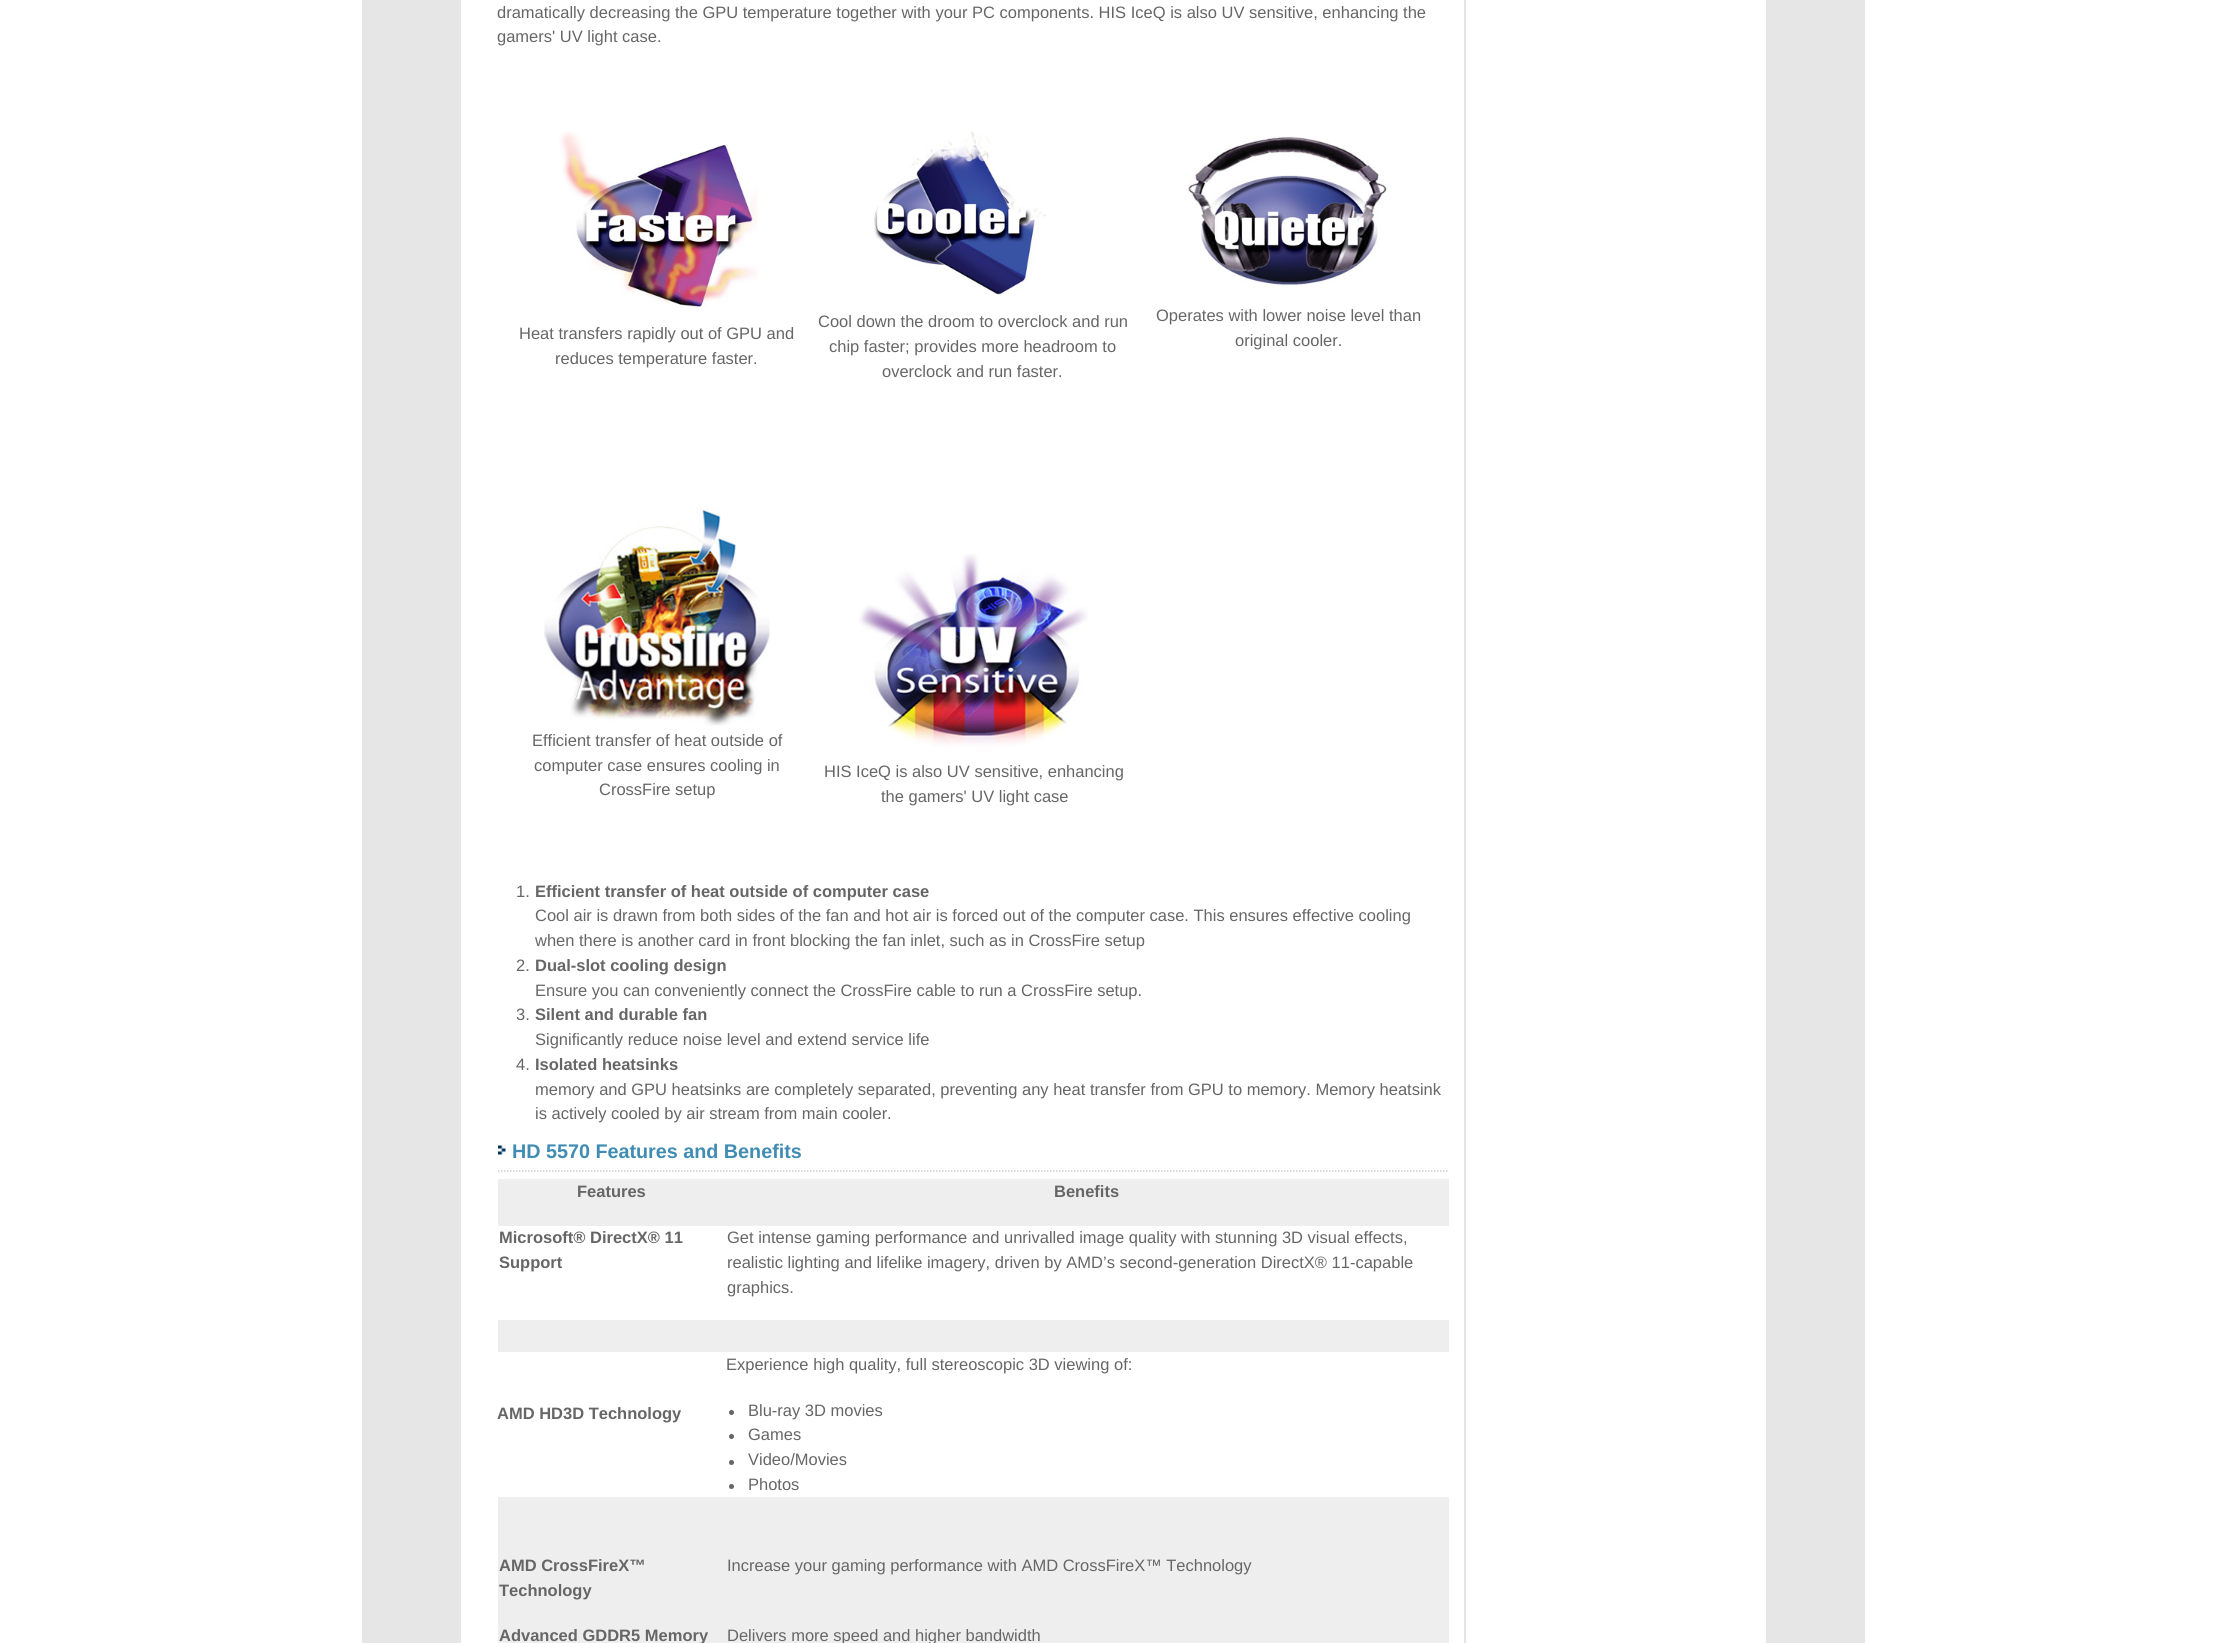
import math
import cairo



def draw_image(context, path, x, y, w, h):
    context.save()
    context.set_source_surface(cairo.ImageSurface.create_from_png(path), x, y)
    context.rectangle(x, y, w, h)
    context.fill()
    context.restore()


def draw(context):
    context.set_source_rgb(1, 1, 1)
    context.paint()
    context.set_source_rgb(230 / 255, 230 / 255, 230 / 255)
    context.rectangle(362, 0, 1503, 1643)
    context.fill()
    context.set_source_rgb(1, 1, 1)
    context.rectangle(461, 0, 1305, 1643)
    context.fill()
    context.set_source_rgb(228 / 255, 228 / 255, 228 / 255)
    context.rectangle(1464, 0, 2, 1643)
    context.fill()
    draw_image(context, "images/1.png", 559, 131, 199, 176)
    draw_image(context, "images/2.png", 874, 131, 173, 165)
    draw_image(context, "images/3.png", 1188, 136, 200, 151)
    draw_image(context, "images/4.png", 544, 508, 226, 218)
    draw_image(context, "images/5.png", 859, 554, 229, 193)
    draw_image(context, "images/6.png", 498, 1145, 8, 10)
    context.new_path()
    context.move_to(498, 1171)
    context.line_to(1449, 1171)
    context.set_source_rgb(204 / 255, 204 / 255, 204 / 255)
    context.set_line_width(1.5)
    context.set_dash([1.5, 1.5])
    context.stroke()
    context.set_source_rgb(238 / 255, 238 / 255, 238 / 255)
    context.rectangle(498, 1179, 951, 47)
    context.fill()
    context.rectangle(498, 1320, 951, 32)
    context.fill()
    context.set_source_rgb(102 / 255, 102 / 255, 102 / 255)
    context.arc(731.5, 1412.5, 2.5, 0, 2 * math.pi)
    context.fill()
    context.arc(731.5, 1436.5, 2.5, 0, 2 * math.pi)
    context.fill()
    context.arc(731.5, 1462.5, 2.5, 0, 2 * math.pi)
    context.fill()
    context.arc(731.5, 1486.5, 2.5, 0, 2 * math.pi)
    context.fill()
    context.set_source_rgb(238 / 255, 238 / 255, 238 / 255)
    context.rectangle(498, 1497, 951, 24)
    context.fill()
    context.rectangle(498, 1521, 951, 32)
    context.fill()
    context.rectangle(498, 1553, 951, 70)
    context.fill()
    context.rectangle(498, 1623, 951, 20)
    context.fill()
    context.select_font_face("Liberation Sans")
    context.set_font_size(16.5)
    context.set_source_rgb(102 / 255, 102 / 255, 102 / 255)
    context.move_to(497, 18)
    context.show_text("dramatically decreasing the GPU temperature together with your PC components. HIS IceQ is also UV sensitive, enhancing the")
    context.move_to(497, 42)
    context.show_text("gamers' UV light case.")
    context.move_to(519, 339)
    context.show_text("Heat transfers rapidly out of GPU and")
    context.move_to(555, 364)
    context.show_text("reduces temperature faster.")
    context.move_to(818, 327)
    context.show_text("Cool down the droom to overclock and run")
    context.move_to(829, 352)
    context.show_text("chip faster; provides more headroom to")
    context.move_to(882, 377)
    context.show_text("overclock and run faster.")
    context.move_to(1156, 321)
    context.show_text("Operates with lower noise level than")
    context.move_to(1235, 346)
    context.show_text("original cooler.")
    context.move_to(532, 746)
    context.show_text("Efficient transfer of heat outside of")
    context.move_to(534, 771)
    context.show_text("computer case ensures cooling in")
    context.move_to(599, 795)
    context.show_text("CrossFire setup")
    context.move_to(824, 777)
    context.show_text("HIS IceQ is also UV sensitive, enhancing")
    context.move_to(881, 802)
    context.show_text("the gamers' UV light case")
    context.move_to(516, 897)
    context.show_text("1.")
    context.select_font_face("Liberation Sans", cairo.FontSlant.NORMAL, cairo.FontWeight.BOLD)
    context.move_to(535, 897)
    context.show_text("Efficient transfer of heat outside of computer case")
    context.select_font_face("Liberation Sans")
    context.move_to(535, 921)
    context.show_text("Cool air is drawn from both sides of the fan and hot air is forced out of the computer case. This ensures effective cooling")
    context.move_to(535, 946)
    context.show_text("when there is another card in front blocking the fan inlet, such as in CrossFire setup")
    context.move_to(516, 971)
    context.show_text("2.")
    context.select_font_face("Liberation Sans", cairo.FontSlant.NORMAL, cairo.FontWeight.BOLD)
    context.move_to(535, 971)
    context.show_text("Dual-slot cooling design")
    context.select_font_face("Liberation Sans")
    context.move_to(535, 996)
    context.show_text("Ensure you can conveniently connect the CrossFire cable to run a CrossFire setup.")
    context.move_to(516, 1020)
    context.show_text("3.")
    context.select_font_face("Liberation Sans", cairo.FontSlant.NORMAL, cairo.FontWeight.BOLD)
    context.move_to(535, 1020)
    context.show_text("Silent and durable fan")
    context.select_font_face("Liberation Sans")
    context.move_to(535, 1045)
    context.show_text("Significantly reduce noise level and extend service life")
    context.move_to(516, 1070)
    context.show_text("4.")
    context.select_font_face("Liberation Sans", cairo.FontSlant.NORMAL, cairo.FontWeight.BOLD)
    context.move_to(535, 1070)
    context.show_text("Isolated heatsinks")
    context.select_font_face("Liberation Sans")
    context.move_to(535, 1095)
    context.show_text("memory and GPU heatsinks are completely separated, preventing any heat transfer from GPU to memory. Memory heatsink")
    context.move_to(535, 1119)
    context.show_text("is actively cooled by air stream from main cooler.")
    context.select_font_face("Liberation Sans", cairo.FontSlant.NORMAL, cairo.FontWeight.BOLD)
    context.set_font_size(19.75)
    context.set_source_rgb(64 / 255, 140 / 255, 179 / 255)
    context.move_to(512, 1158)
    context.show_text("HD 5570 Features and Benefits")
    context.set_font_size(16.5)
    context.set_source_rgb(102 / 255, 102 / 255, 102 / 255)
    context.move_to(577, 1197)
    context.show_text("Features")
    context.move_to(1054, 1197)
    context.show_text("Benefits")
    context.move_to(499, 1243)
    context.show_text("Microsoft® DirectX® 11")
    context.move_to(499, 1268)
    context.show_text("Support")
    context.select_font_face("Liberation Sans")
    context.move_to(727, 1243)
    context.show_text("Get intense gaming performance and unrivalled image quality with stunning 3D visual effects,")
    context.move_to(727, 1268)
    context.show_text("realistic lighting and lifelike imagery, driven by AMD’s second-generation DirectX® 11-capable")
    context.move_to(727, 1293)
    context.show_text("graphics.")
    context.select_font_face("Liberation Sans", cairo.FontSlant.NORMAL, cairo.FontWeight.BOLD)
    context.move_to(497, 1419)
    context.show_text("AMD HD3D Technology")
    context.select_font_face("Liberation Sans")
    context.move_to(726, 1370)
    context.show_text("Experience high quality, full stereoscopic 3D viewing of:")
    context.move_to(748, 1416)
    context.show_text("Blu-ray 3D movies")
    context.move_to(748, 1440)
    context.show_text("Games")
    context.move_to(748, 1465)
    context.show_text("Video/Movies")
    context.move_to(748, 1490)
    context.show_text("Photos")
    context.select_font_face("Liberation Sans", cairo.FontSlant.NORMAL, cairo.FontWeight.BOLD)
    context.move_to(499, 1571)
    context.show_text("AMD CrossFireX™")
    context.move_to(499, 1596)
    context.show_text("Technology")
    context.select_font_face("Liberation Sans")
    context.move_to(727, 1571)
    context.show_text("Increase your gaming performance with AMD CrossFireX™ Technology")
    context.select_font_face("Liberation Sans", cairo.FontSlant.NORMAL, cairo.FontWeight.BOLD)
    context.move_to(499, 1641)
    context.show_text("Advanced GDDR5 Memory")
    context.select_font_face("Liberation Sans")
    context.move_to(727, 1641)
    context.show_text("Delivers more speed and higher bandwidth")


surface = cairo.ImageSurface(cairo.Format.RGB24, 2224, 1643)
context = cairo.Context(surface)
options = cairo.FontOptions()
options.set_hint_metrics(cairo.HintMetrics.OFF)
options.set_hint_style(cairo.HintStyle.NONE)
context.set_font_options(options)
context.set_miter_limit(4)
draw(context)
surface.write_to_png("out.png")
